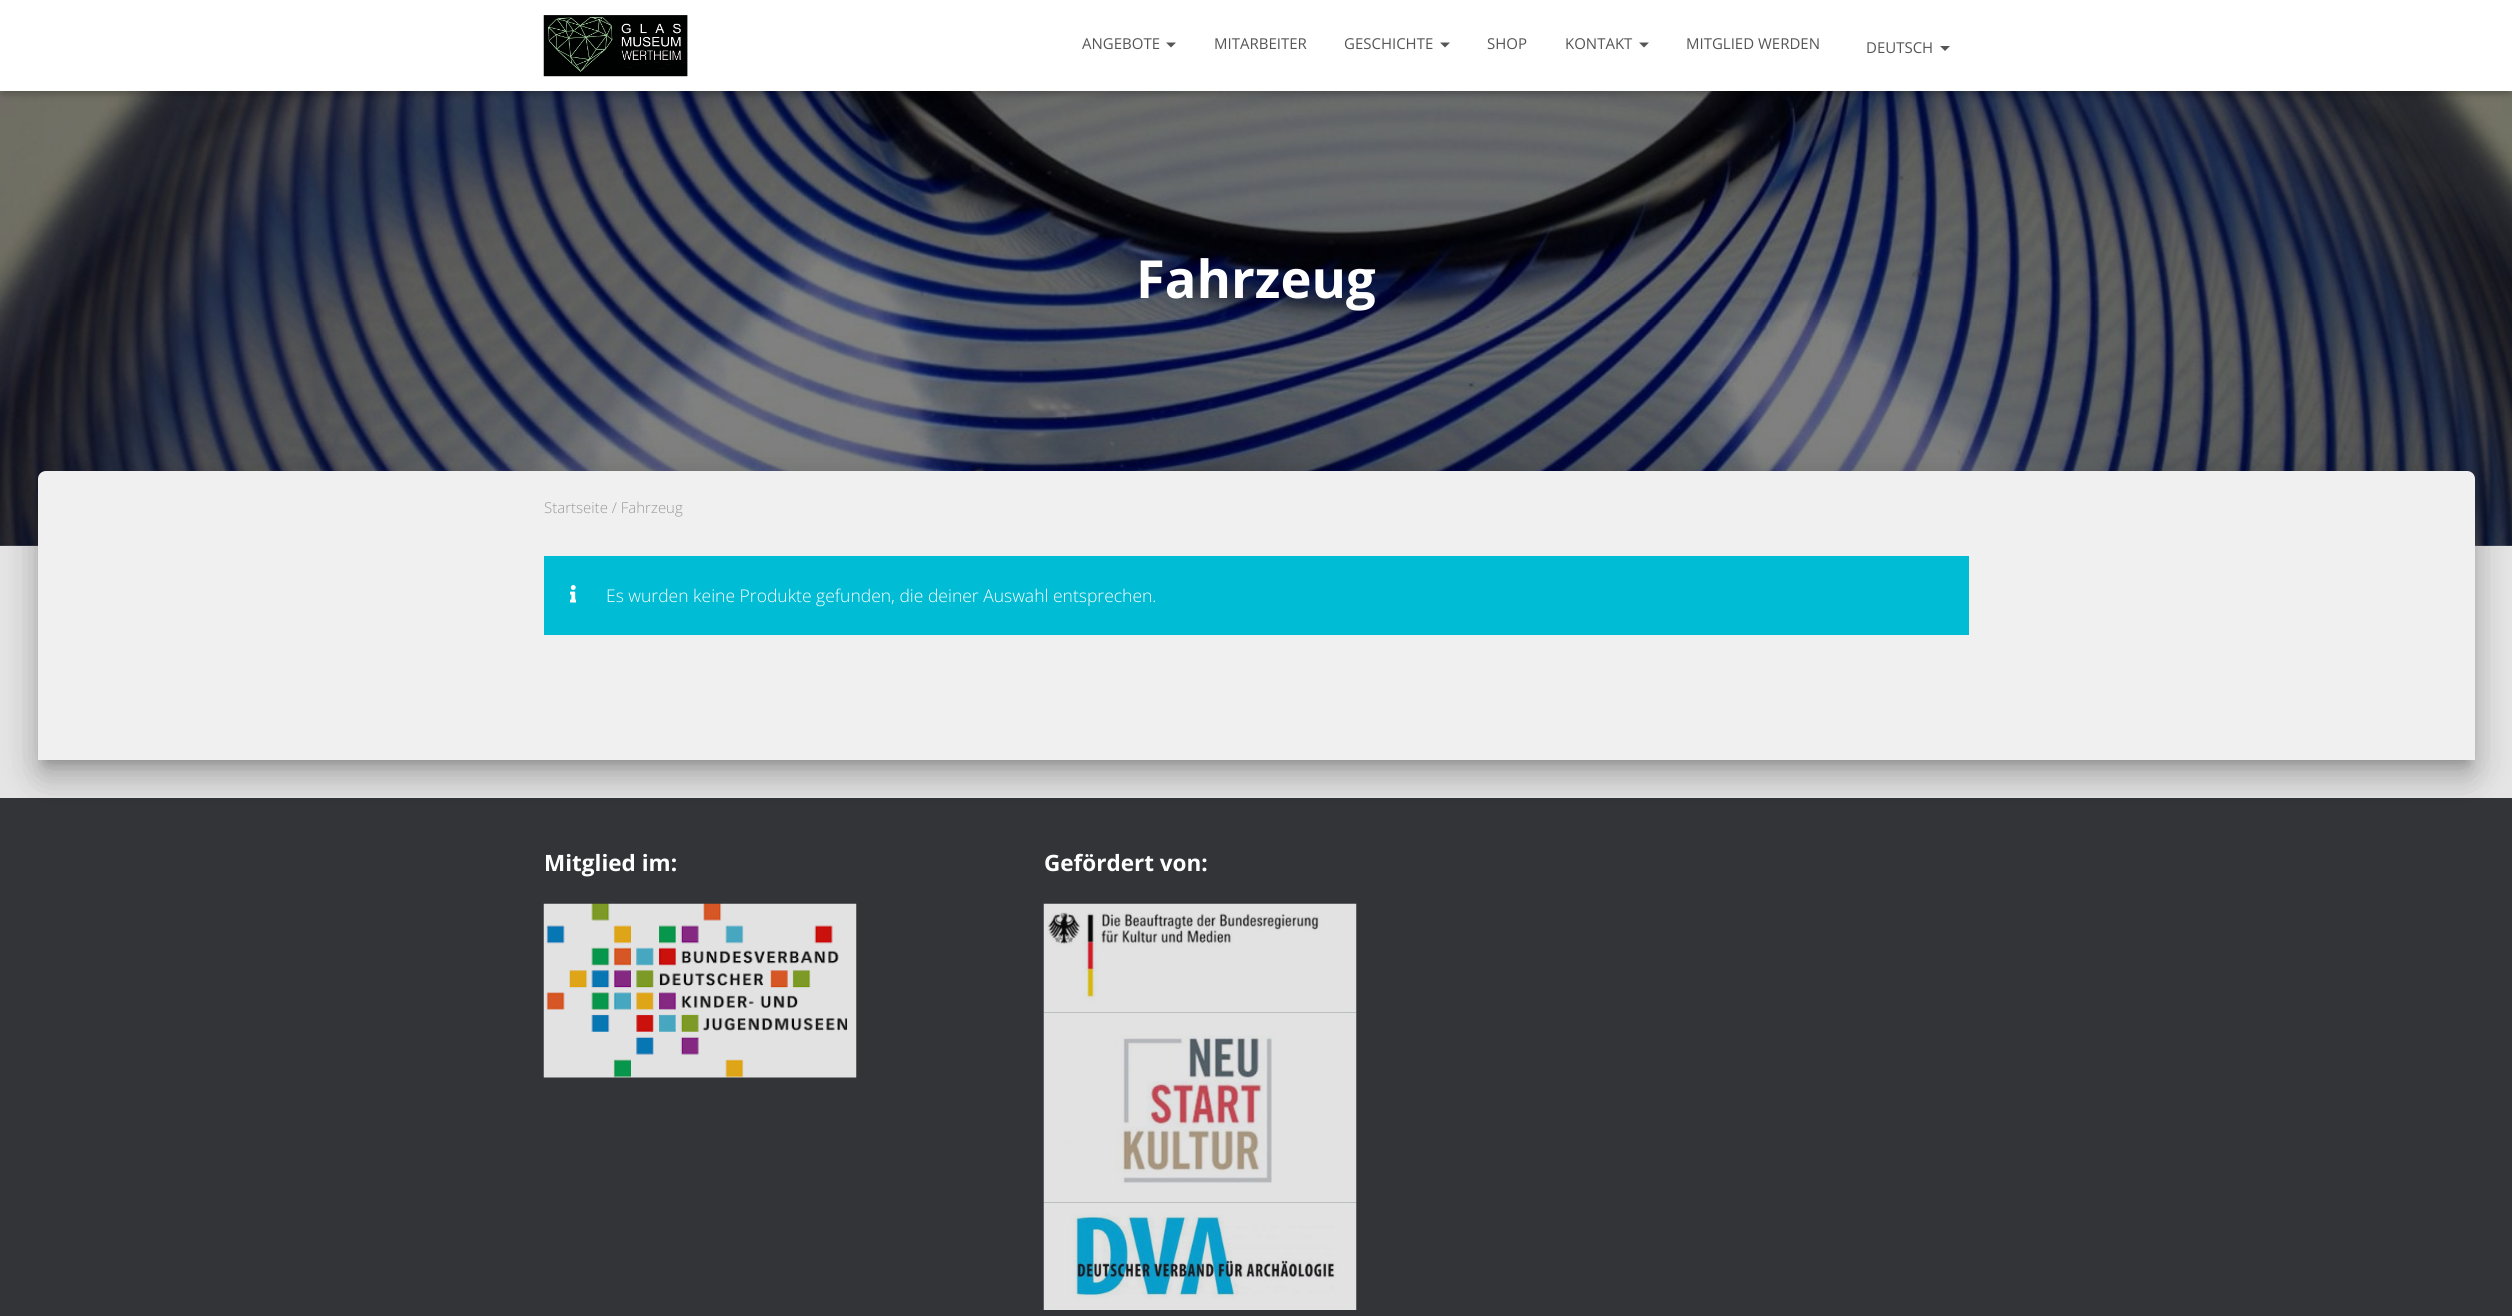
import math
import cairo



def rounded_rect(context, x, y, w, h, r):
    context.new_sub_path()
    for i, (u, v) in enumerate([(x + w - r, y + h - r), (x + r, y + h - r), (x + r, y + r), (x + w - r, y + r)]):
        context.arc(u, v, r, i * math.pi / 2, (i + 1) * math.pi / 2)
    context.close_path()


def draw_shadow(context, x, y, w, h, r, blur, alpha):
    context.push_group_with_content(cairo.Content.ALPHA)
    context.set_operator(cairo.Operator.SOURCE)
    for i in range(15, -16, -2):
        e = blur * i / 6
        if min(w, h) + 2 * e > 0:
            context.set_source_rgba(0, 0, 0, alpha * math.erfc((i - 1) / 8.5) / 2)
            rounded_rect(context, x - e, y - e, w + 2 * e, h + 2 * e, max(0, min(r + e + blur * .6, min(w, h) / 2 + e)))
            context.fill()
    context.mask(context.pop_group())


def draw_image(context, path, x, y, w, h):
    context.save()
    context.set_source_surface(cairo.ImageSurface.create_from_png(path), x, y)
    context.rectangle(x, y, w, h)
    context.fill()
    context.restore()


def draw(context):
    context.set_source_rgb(229 / 255, 229 / 255, 229 / 255)
    context.paint()
    draw_image(context, "images/2.png", 0, 91, 2512, 455)
    context.set_source_rgb(0, 0, 0)
    draw_shadow(context, 3, 8, 2507, 86, 0, 3, 0.1)
    draw_shadow(context, 0, 1, 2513, 92, 0, 6, 0.12)
    draw_shadow(context, 8, 9, 2497, 76, 0, 6, 0.42)
    context.set_source_rgb(1, 1, 1)
    context.rectangle(0, 0, 2512, 91)
    context.fill()
    draw_image(context, "images/1.png", 543, 15, 145, 62)
    context.set_source_rgb(85 / 255, 85 / 255, 85 / 255)
    context.new_path()
    context.move_to(1166, 42.5)
    context.line_to(1176, 42.5)
    context.line_to(1171, 47.5)
    context.close_path()
    context.fill()
    context.new_path()
    context.move_to(1440, 42.5)
    context.line_to(1450, 42.5)
    context.line_to(1445, 47.5)
    context.close_path()
    context.fill()
    context.new_path()
    context.move_to(1639, 42.5)
    context.line_to(1649, 42.5)
    context.line_to(1644, 47.5)
    context.close_path()
    context.fill()
    context.new_path()
    context.move_to(1940, 46)
    context.line_to(1950, 46)
    context.line_to(1945, 51)
    context.close_path()
    context.fill()
    context.set_source_rgb(0, 0, 0)
    draw_shadow(context, 44, 488, 2425, 276, 1, 6, 0.2)
    context.set_source_rgb(50 / 255, 52 / 255, 55 / 255)
    context.rectangle(0, 798, 2512, 518)
    context.fill()
    context.set_source_rgb(0, 0, 0)
    draw_shadow(context, 31, 473, 2450, 301, 14, 19, 0.12)
    draw_shadow(context, 35, 489, 2443, 294, 10, 15, 0.14)
    context.set_source_rgb(240 / 255, 240 / 255, 240 / 255)
    context.new_path()
    context.move_to(46, 471)
    context.line_to(2467, 471)
    context.curve_to(2471.5, 471, 2475, 474.5, 2475, 479)
    context.line_to(2475, 760)
    context.line_to(38, 760)
    context.line_to(38, 479)
    context.curve_to(38, 474.5, 41.5, 471, 46, 471)
    context.close_path()
    context.fill()
    context.set_source_rgb(0, 188 / 255, 212 / 255)
    context.rectangle(544, 556, 1425, 79)
    context.fill()
    draw_image(context, "images/3.png", 570, 585, 6, 18)
    draw_image(context, "images/4.png", 543, 903, 314, 175)
    draw_image(context, "images/5.png", 1043, 903, 314, 110)
    draw_image(context, "images/6.png", 1043, 1012, 314, 191)
    draw_image(context, "images/7.png", 1043, 1202, 314, 108)
    context.select_font_face("Open Sans")
    context.set_font_size(15)
    context.set_source_rgb(85 / 255, 85 / 255, 85 / 255)
    context.move_to(1082, 49)
    context.show_text("ANGEBOTE")
    context.move_to(1214, 49)
    context.show_text("MITARBEITER")
    context.move_to(1344, 49)
    context.show_text("GESCHICHTE")
    context.move_to(1487, 49)
    context.show_text("SHOP")
    context.move_to(1565, 49)
    context.show_text("KONTAKT")
    context.move_to(1686, 49)
    context.show_text("MITGLIED WERDEN")
    context.move_to(1866, 53)
    context.show_text("DEUTSCH")
    context.select_font_face("Open Sans", cairo.FontSlant.NORMAL, cairo.FontWeight.BOLD)
    context.set_font_size(52.5)
    context.set_source_rgb(1, 1, 1)
    context.move_to(1136, 298)
    context.show_text("Fahrzeug")
    context.select_font_face("Open Sans Light")
    context.set_font_size(15)
    context.set_source_rgb(153 / 255, 153 / 255, 153 / 255)
    context.move_to(544, 513)
    context.show_text("Startseite / Fahrzeug")
    context.set_font_size(17.5)
    context.set_source_rgb(1, 1, 1)
    context.move_to(606, 602)
    context.show_text("Es wurden keine Produkte gefunden, die deiner Auswahl entsprechen.")
    context.select_font_face("Open Sans", cairo.FontSlant.NORMAL, cairo.FontWeight.BOLD)
    context.set_font_size(22.5)
    context.move_to(544, 871)
    context.show_text("Mitglied im:")
    context.move_to(1044, 871)
    context.show_text("Gefördert von:")


surface = cairo.ImageSurface(cairo.Format.RGB24, 2512, 1316)
context = cairo.Context(surface)
options = cairo.FontOptions()
options.set_hint_metrics(cairo.HintMetrics.OFF)
options.set_hint_style(cairo.HintStyle.NONE)
context.set_font_options(options)
context.set_miter_limit(4)
draw(context)
surface.write_to_png("out.png")
